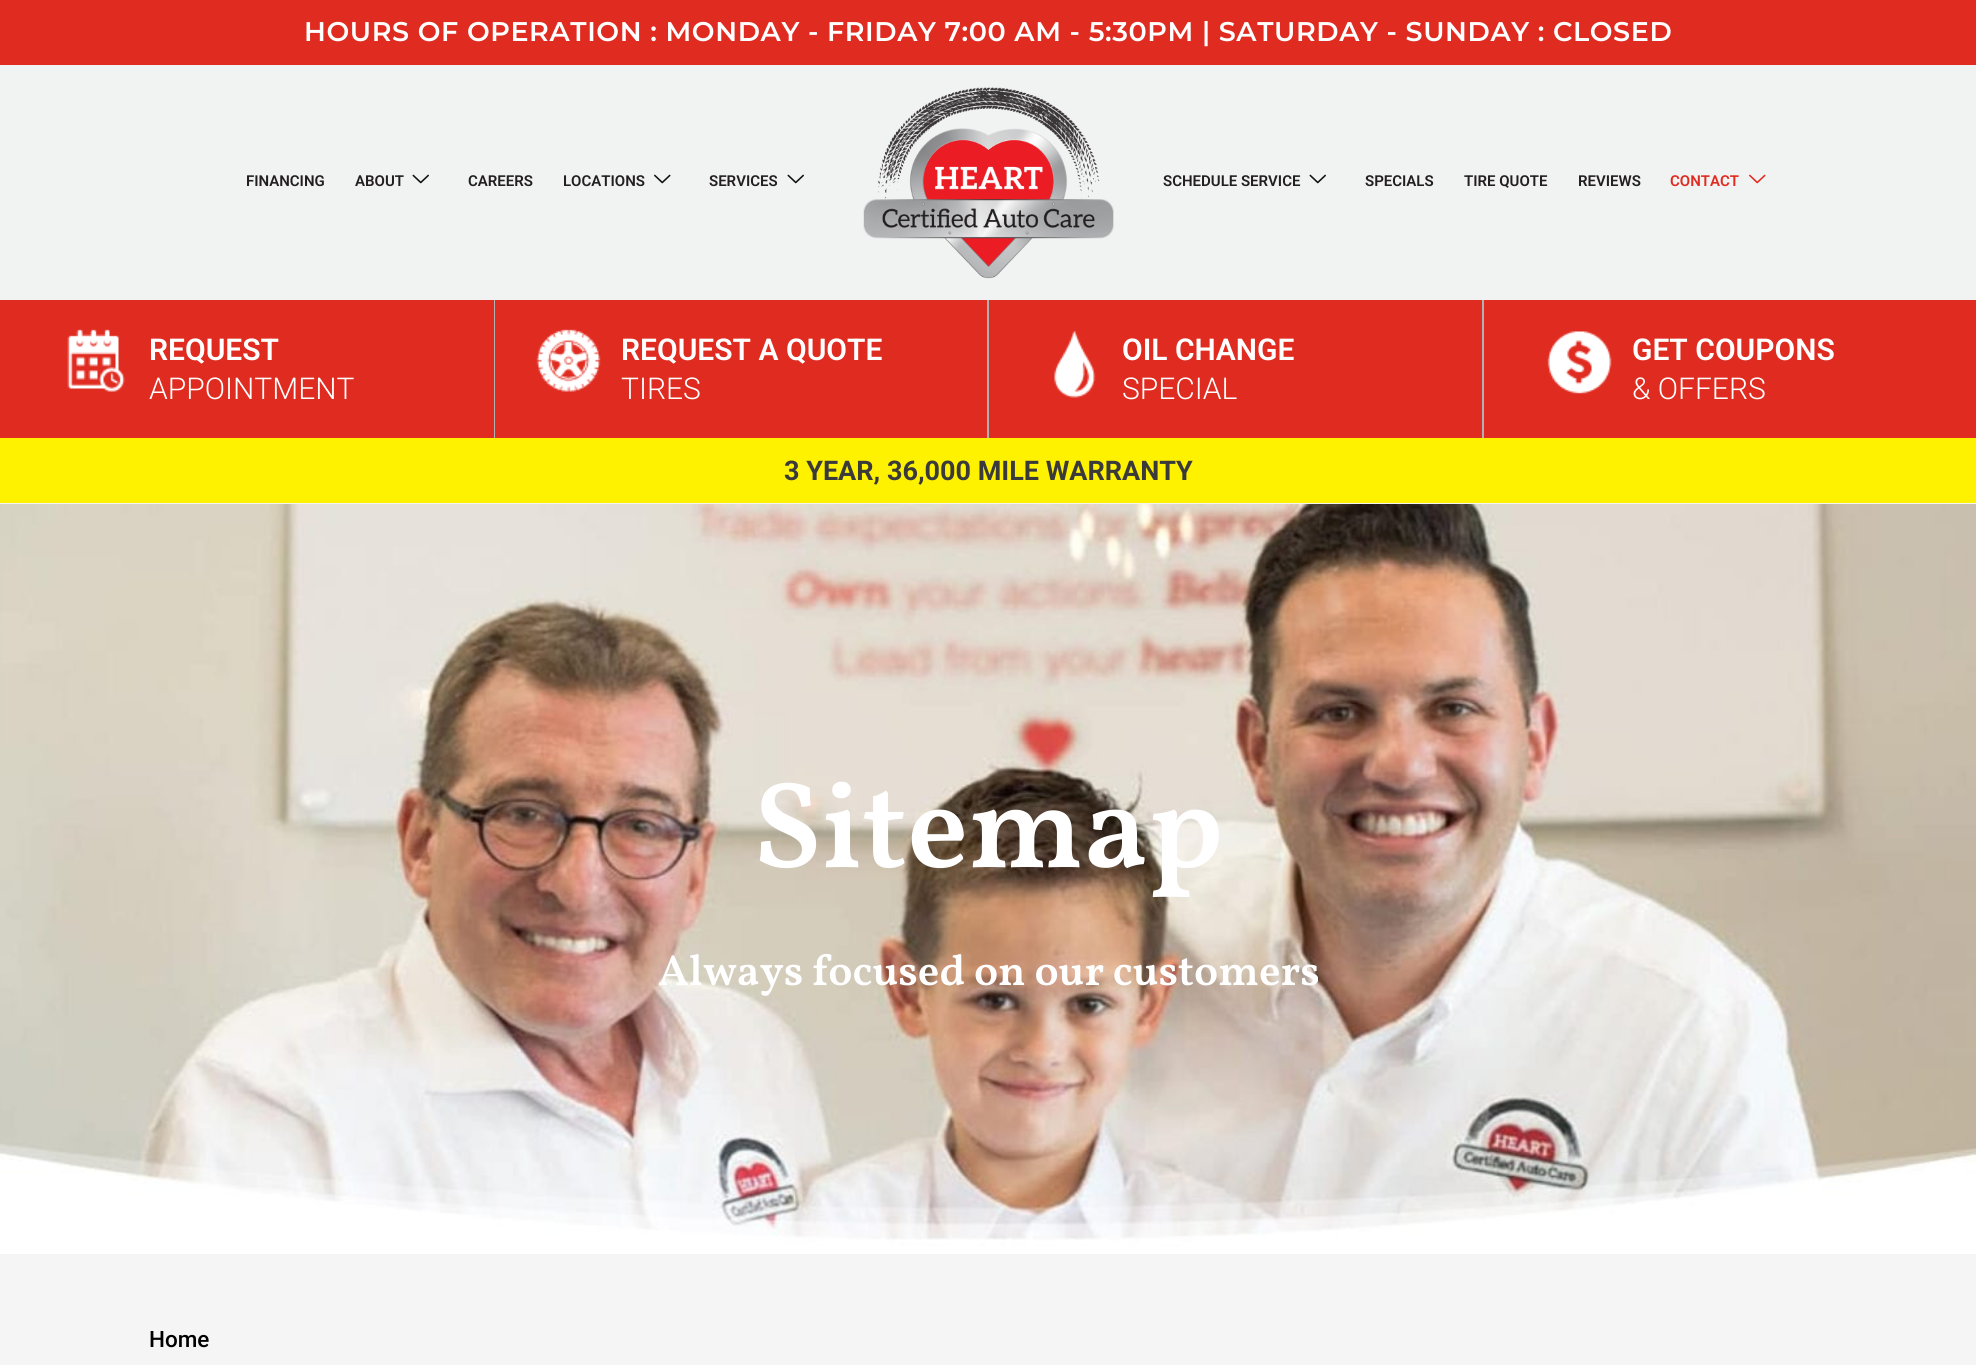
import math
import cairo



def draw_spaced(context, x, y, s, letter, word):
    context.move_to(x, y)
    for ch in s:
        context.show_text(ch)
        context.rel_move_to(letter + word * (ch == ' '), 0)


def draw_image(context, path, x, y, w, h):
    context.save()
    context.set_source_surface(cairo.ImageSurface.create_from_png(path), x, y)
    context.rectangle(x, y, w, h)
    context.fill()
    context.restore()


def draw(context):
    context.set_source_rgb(245 / 255, 245 / 255, 245 / 255)
    context.paint()
    context.set_source_rgb(224 / 255, 43 / 255, 32 / 255)
    context.rectangle(0, 0, 1976, 65)
    context.fill()
    context.set_source_rgb(241 / 255, 242 / 255, 242 / 255)
    context.rectangle(0, 65, 1976, 235)
    context.fill()
    draw_image(context, "images/1.png", 412, 174, 17, 10)
    draw_image(context, "images/2.png", 654, 174, 17, 10)
    draw_image(context, "images/1.png", 787, 174, 17, 10)
    draw_image(context, "images/3.png", 863, 87, 251, 192)
    draw_image(context, "images/1.png", 1309, 174, 17, 10)
    draw_image(context, "images/4.png", 1749, 174, 17, 10)
    context.set_source_rgb(224 / 255, 43 / 255, 32 / 255)
    context.rectangle(0, 300, 494, 138)
    context.fill()
    context.set_source_rgb(177 / 255, 177 / 255, 177 / 255)
    context.rectangle(494, 300, 1, 138)
    context.fill()
    draw_image(context, "images/5.png", 67, 329, 58, 63)
    context.set_source_rgb(224 / 255, 43 / 255, 32 / 255)
    context.rectangle(495, 300, 492, 138)
    context.fill()
    context.set_source_rgb(177 / 255, 177 / 255, 177 / 255)
    context.rectangle(987, 300, 2, 138)
    context.fill()
    draw_image(context, "images/6.png", 536, 329, 65, 63)
    context.set_source_rgb(224 / 255, 43 / 255, 32 / 255)
    context.rectangle(989, 300, 493, 138)
    context.fill()
    context.set_source_rgb(177 / 255, 177 / 255, 177 / 255)
    context.rectangle(1482, 300, 2, 138)
    context.fill()
    draw_image(context, "images/7.png", 1054, 330, 42, 68)
    context.set_source_rgb(224 / 255, 43 / 255, 32 / 255)
    context.rectangle(1484, 300, 492, 138)
    context.fill()
    draw_image(context, "images/8.png", 1547, 331, 65, 63)
    context.set_source_rgb(1, 242 / 255, 0)
    context.rectangle(0, 438, 1976, 65)
    context.fill()
    draw_image(context, "images/9.png", 0, 504, 1976, 750)
    context.select_font_face("Montserrat SemiBold")
    context.set_font_size(27)
    context.set_source_rgb(1, 1, 1)
    draw_spaced(context, 304, 41, "HOURS OF OPERATION : MONDAY - FRIDAY 7:00 AM - 5:30PM | SATURDAY - SUNDAY : CLOSED", 0.6, 0)
    context.select_font_face("Roboto SemiBold")
    context.set_font_size(15)
    context.set_source_rgb(35 / 255, 31 / 255, 32 / 255)
    context.move_to(246, 186)
    context.show_text("FINANCING")
    context.move_to(355, 186)
    context.show_text("ABOUT")
    context.move_to(468, 186)
    context.show_text("CAREERS")
    context.move_to(563, 186)
    context.show_text("LOCATIONS")
    context.move_to(709, 186)
    context.show_text("SERVICES")
    context.move_to(1163, 186)
    context.show_text("SCHEDULE SERVICE")
    context.move_to(1365, 186)
    context.show_text("SPECIALS")
    context.move_to(1464, 186)
    context.show_text("TIRE QUOTE")
    context.move_to(1578, 186)
    context.show_text("REVIEWS")
    context.set_source_rgb(224 / 255, 43 / 255, 32 / 255)
    context.move_to(1670, 186)
    context.show_text("CONTACT")
    context.set_font_size(30)
    context.set_source_rgb(1, 1, 1)
    context.move_to(149, 360)
    context.show_text("REQUEST")
    context.select_font_face("Roboto Light")
    context.move_to(149, 399)
    context.show_text("APPOINTMENT")
    context.select_font_face("Roboto SemiBold")
    context.move_to(621, 360)
    context.show_text("REQUEST A QUOTE")
    context.select_font_face("Roboto Light")
    context.move_to(621, 399)
    context.show_text("TIRES")
    context.select_font_face("Roboto SemiBold")
    context.move_to(1122, 360)
    context.show_text("OIL CHANGE")
    context.select_font_face("Roboto Light")
    context.move_to(1122, 399)
    context.show_text("SPECIAL")
    context.select_font_face("Roboto SemiBold")
    context.move_to(1632, 360)
    context.show_text("GET COUPONS")
    context.select_font_face("Roboto Light")
    context.move_to(1632, 399)
    context.show_text("& OFFERS")
    context.select_font_face("Roboto", cairo.FontSlant.NORMAL, cairo.FontWeight.BOLD)
    context.set_font_size(27)
    context.set_source_rgb(58 / 255, 58 / 255, 58 / 255)
    context.move_to(784, 480)
    context.show_text("3 YEAR, 36,000 MILE WARRANTY")
    context.select_font_face("Vollkorn SemiBold")
    context.set_font_size(123)
    context.set_source_rgb(1, 1, 1)
    context.move_to(753, 867)
    context.show_text("Sitemap")
    context.set_font_size(43.5)
    context.move_to(658, 985)
    context.show_text("Always focused on our customers")
    context.select_font_face("Roboto Medium")
    context.set_font_size(22.5)
    context.set_source_rgb(0, 0, 0)
    context.move_to(149, 1347)
    context.show_text("Home")


surface = cairo.ImageSurface(cairo.Format.RGB24, 1976, 1365)
context = cairo.Context(surface)
options = cairo.FontOptions()
options.set_hint_metrics(cairo.HintMetrics.OFF)
options.set_hint_style(cairo.HintStyle.NONE)
context.set_font_options(options)
context.set_miter_limit(4)
draw(context)
surface.write_to_png("out.png")
